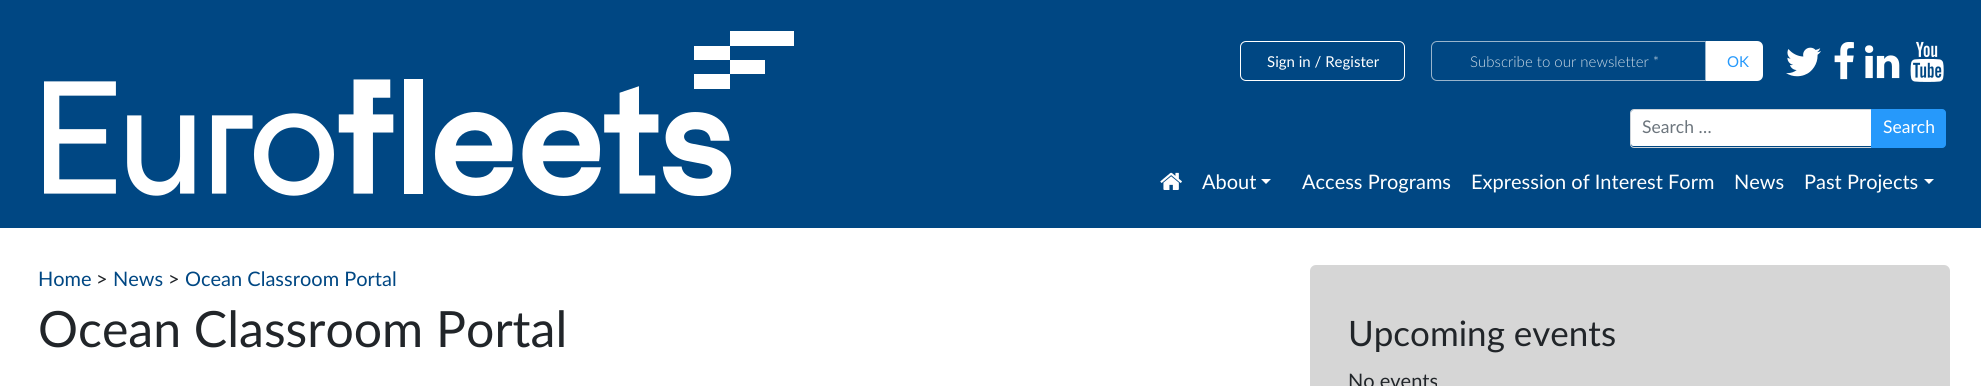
import math
import cairo



def rounded_rect(context, x, y, w, h, r):
    context.new_sub_path()
    for i, (u, v) in enumerate([(x + w - r, y + h - r), (x + r, y + h - r), (x + r, y + r), (x + w - r, y + r)]):
        context.arc(u, v, r, i * math.pi / 2, (i + 1) * math.pi / 2)
    context.close_path()


def draw_image(context, path, x, y, w, h):
    context.save()
    context.set_source_surface(cairo.ImageSurface.create_from_png(path), x, y)
    context.rectangle(x, y, w, h)
    context.fill()
    context.restore()


def draw(context):
    context.set_source_rgb(1, 1, 1)
    context.paint()
    context.set_source_rgb(0, 71 / 255, 131 / 255)
    context.rectangle(0, 0, 1981, 228)
    context.fill()
    draw_image(context, "images/1.png", 44, 31, 750, 165)
    rounded_rect(context, 1240.5, 41.5, 164, 39, 5.5)
    context.set_source_rgb(1, 1, 1)
    context.set_line_width(1)
    context.stroke()
    context.new_path()
    context.move_to(1700, 41)
    context.line_to(1757, 41)
    context.curve_to(1760.5, 41, 1763, 43.5, 1763, 47)
    context.line_to(1763, 75)
    context.curve_to(1763, 78.5, 1760.5, 81, 1757, 81)
    context.line_to(1700, 81)
    context.close_path()
    context.fill()
    context.set_source_rgb(0, 71 / 255, 131 / 255)
    context.new_path()
    context.move_to(1437, 41.5)
    context.line_to(1705.5, 41.5)
    context.line_to(1705.5, 80.5)
    context.line_to(1437, 80.5)
    context.curve_to(1434, 80.5, 1431.5, 78, 1431.5, 75)
    context.line_to(1431.5, 47)
    context.curve_to(1431.5, 44, 1434, 41.5, 1437, 41.5)
    context.close_path()
    context.fill_preserve()
    context.set_source_rgb(153 / 255, 181 / 255, 205 / 255)
    context.stroke()
    draw_image(context, "images/2.png", 1786, 47, 35, 30)
    draw_image(context, "images/3.png", 1834, 42, 20, 38)
    draw_image(context, "images/4.png", 1865, 45, 35, 34)
    draw_image(context, "images/5.png", 1910, 41, 34, 41)
    context.set_source_rgb(1, 1, 1)
    context.new_path()
    context.move_to(1633.5, 110)
    context.line_to(1871, 110)
    context.line_to(1871, 146)
    context.line_to(1633.5, 146)
    context.curve_to(1632, 146, 1631, 145, 1631, 143.5)
    context.line_to(1631, 112.5)
    context.curve_to(1631, 111, 1632, 110, 1633.5, 110)
    context.close_path()
    context.fill()
    context.new_path()
    context.move_to(1634, 109.5)
    context.line_to(1872.5, 109.5)
    context.line_to(1872.5, 147.5)
    context.line_to(1634, 147.5)
    context.curve_to(1632, 147.5, 1630.5, 146, 1630.5, 144)
    context.line_to(1630.5, 113)
    context.curve_to(1630.5, 111, 1632, 109.5, 1634, 109.5)
    context.close_path()
    context.set_source_rgb(206 / 255, 212 / 255, 218 / 255)
    context.stroke()
    context.set_source_rgb(38 / 255, 153 / 255, 251 / 255)
    context.new_path()
    context.move_to(1871.5, 109.5)
    context.line_to(1942, 109.5)
    context.curve_to(1944, 109.5, 1945.5, 111, 1945.5, 113)
    context.line_to(1945.5, 144)
    context.curve_to(1945.5, 146, 1944, 147.5, 1942, 147.5)
    context.line_to(1871.5, 147.5)
    context.close_path()
    context.fill_preserve()
    context.stroke()
    draw_image(context, "images/6.png", 1160, 172, 22, 18)
    context.set_source_rgb(1, 1, 1)
    context.new_path()
    context.move_to(1261, 179)
    context.line_to(1271, 179)
    context.line_to(1266, 184)
    context.close_path()
    context.fill()
    context.new_path()
    context.move_to(1924, 179)
    context.line_to(1934, 179)
    context.line_to(1929, 184)
    context.close_path()
    context.fill()
    context.set_source_rgb(214 / 255, 214 / 255, 214 / 255)
    rounded_rect(context, 1310, 265, 640, 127, 6)
    context.fill()
    context.select_font_face("Lato")
    context.set_font_size(15)
    context.set_source_rgb(1, 1, 1)
    context.move_to(1267, 67)
    context.show_text("Sign in / Register")
    context.select_font_face("Lato Light")
    context.set_source_rgb(204 / 255, 218 / 255, 230 / 255)
    context.move_to(1470, 67)
    context.show_text("Subscribe to our newsletter *")
    context.select_font_face("Lato")
    context.set_source_rgb(38 / 255, 153 / 255, 251 / 255)
    context.move_to(1727, 67)
    context.show_text("OK")
    context.set_font_size(17.5)
    context.set_source_rgb(108 / 255, 117 / 255, 125 / 255)
    context.move_to(1642, 133)
    context.show_text("Search …")
    context.set_source_rgb(1, 1, 1)
    context.move_to(1883, 133)
    context.show_text("Search")
    context.set_font_size(20)
    context.move_to(1202, 189)
    context.show_text("About")
    context.move_to(1302, 189)
    context.show_text("Access Programs")
    context.move_to(1471, 189)
    context.show_text("Expression of Interest Form")
    context.move_to(1734, 189)
    context.show_text("News")
    context.move_to(1804, 189)
    context.show_text("Past Projects")
    context.set_source_rgb(0, 71 / 255, 131 / 255)
    context.move_to(38, 286)
    context.show_text("Home")
    context.set_source_rgb(33 / 255, 37 / 255, 41 / 255)
    context.move_to(96, 286)
    context.show_text(">")
    context.set_source_rgb(0, 71 / 255, 131 / 255)
    context.move_to(113, 286)
    context.show_text("News")
    context.set_source_rgb(33 / 255, 37 / 255, 41 / 255)
    context.move_to(168, 286)
    context.show_text(">")
    context.set_source_rgb(0, 71 / 255, 131 / 255)
    context.move_to(185, 286)
    context.show_text("Ocean Classroom Portal")
    context.set_font_size(50)
    context.set_source_rgb(33 / 255, 37 / 255, 41 / 255)
    context.move_to(38, 347)
    context.show_text("Ocean Classroom Portal")
    context.set_font_size(35)
    context.move_to(1348, 346)
    context.show_text("Upcoming events")
    context.set_font_size(20)
    context.move_to(1348, 388)
    context.show_text("No events")


surface = cairo.ImageSurface(cairo.Format.RGB24, 1981, 386)
context = cairo.Context(surface)
options = cairo.FontOptions()
options.set_hint_metrics(cairo.HintMetrics.OFF)
options.set_hint_style(cairo.HintStyle.NONE)
context.set_font_options(options)
context.set_miter_limit(4)
draw(context)
surface.write_to_png("out.png")
